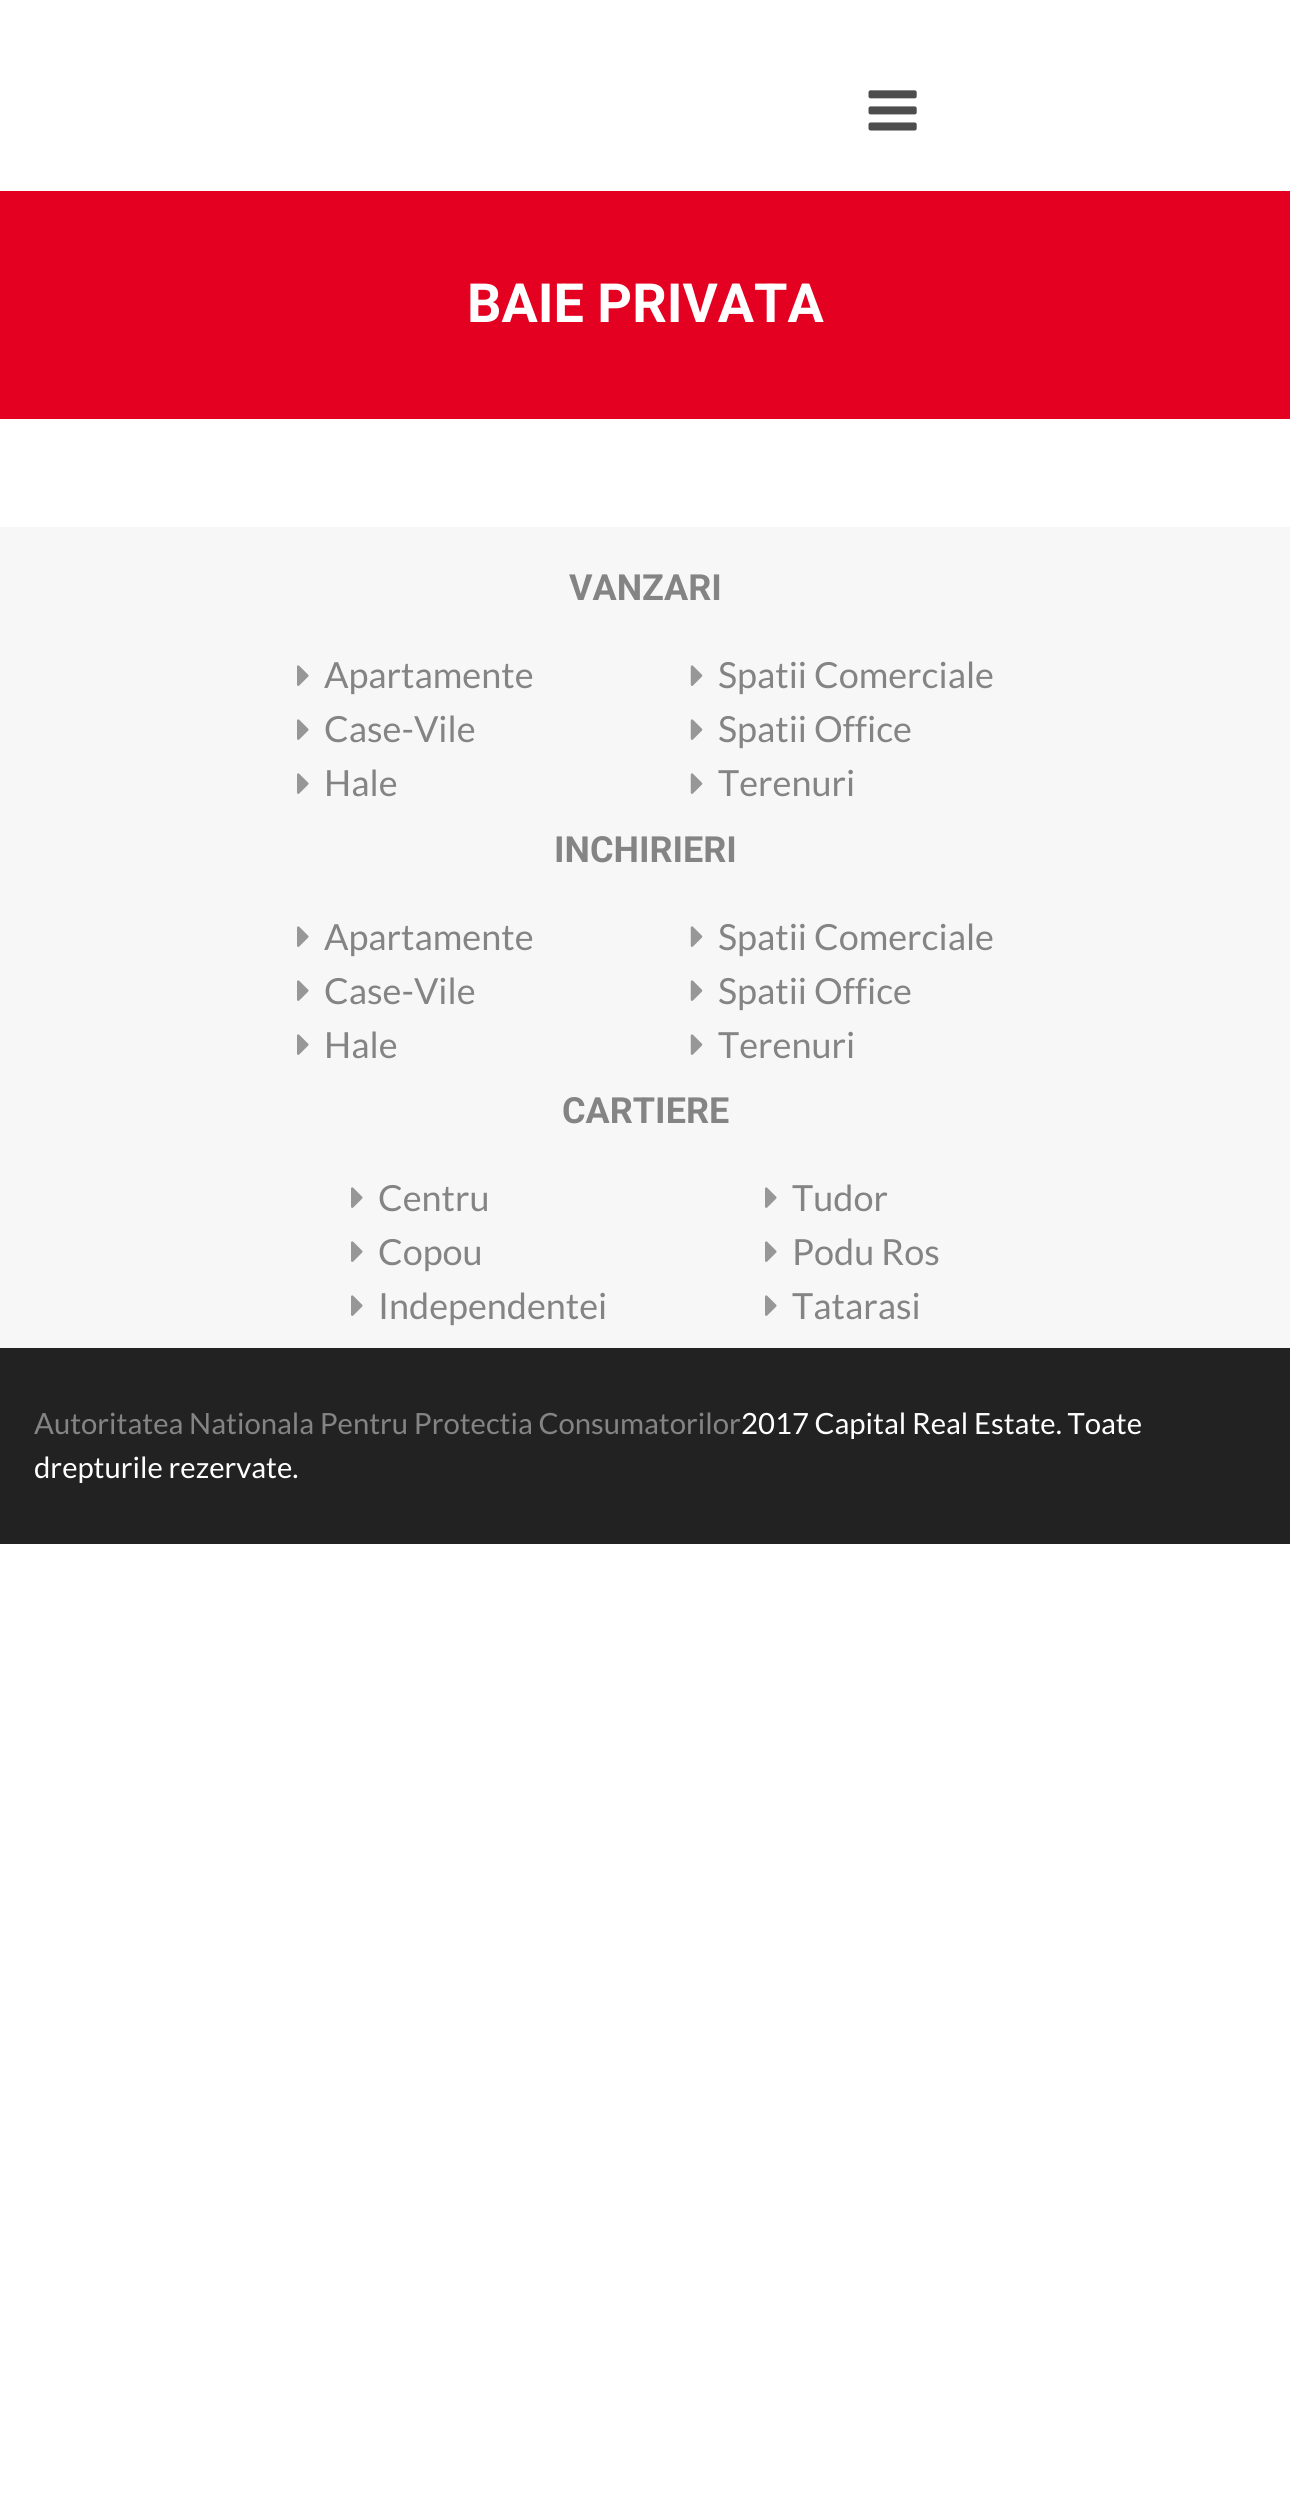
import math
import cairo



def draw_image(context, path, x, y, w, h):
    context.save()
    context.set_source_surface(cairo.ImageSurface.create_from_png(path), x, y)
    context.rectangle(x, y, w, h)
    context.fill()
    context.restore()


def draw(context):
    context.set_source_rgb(1, 1, 1)
    context.paint()
    draw_image(context, "images/1.png", 868, 90, 49, 41)
    context.set_source_rgb(228 / 255, 0, 32 / 255)
    context.rectangle(0, 191, 1290, 228)
    context.fill()
    context.set_source_rgb(247 / 255, 247 / 255, 247 / 255)
    context.rectangle(0, 527, 1290, 821)
    context.fill()
    draw_image(context, "images/2.png", 297, 665, 12, 21)
    draw_image(context, "images/2.png", 297, 719, 12, 21)
    draw_image(context, "images/2.png", 297, 773, 12, 21)
    draw_image(context, "images/3.png", 690, 665, 13, 21)
    draw_image(context, "images/3.png", 690, 719, 13, 21)
    draw_image(context, "images/3.png", 690, 773, 13, 21)
    draw_image(context, "images/2.png", 297, 926, 12, 21)
    draw_image(context, "images/2.png", 297, 980, 12, 21)
    draw_image(context, "images/2.png", 297, 1034, 12, 21)
    draw_image(context, "images/3.png", 690, 926, 13, 21)
    draw_image(context, "images/3.png", 690, 980, 13, 21)
    draw_image(context, "images/3.png", 690, 1034, 13, 21)
    draw_image(context, "images/2.png", 351, 1187, 12, 21)
    draw_image(context, "images/2.png", 351, 1241, 12, 21)
    draw_image(context, "images/2.png", 351, 1295, 12, 21)
    draw_image(context, "images/2.png", 765, 1187, 12, 21)
    draw_image(context, "images/2.png", 765, 1241, 12, 21)
    draw_image(context, "images/2.png", 765, 1295, 12, 21)
    context.set_source_rgb(34 / 255, 34 / 255, 34 / 255)
    context.rectangle(0, 1348, 1290, 196)
    context.fill()
    context.select_font_face("Roboto", cairo.FontSlant.NORMAL, cairo.FontWeight.BOLD)
    context.set_font_size(54)
    context.set_source_rgb(1, 1, 1)
    context.move_to(467, 322)
    context.show_text("BAIE PRIVATA")
    context.set_font_size(36)
    context.set_source_rgb(132 / 255, 132 / 255, 132 / 255)
    context.move_to(569, 600)
    context.show_text("VANZARI")
    context.select_font_face("Lato")
    context.move_to(324, 688)
    context.show_text("Apartamente")
    context.move_to(324, 742)
    context.show_text("Case-Vile")
    context.move_to(324, 796)
    context.show_text("Hale")
    context.move_to(718, 688)
    context.show_text("Spatii Comerciale")
    context.move_to(718, 742)
    context.show_text("Spatii Office")
    context.move_to(718, 796)
    context.show_text("Terenuri")
    context.select_font_face("Roboto", cairo.FontSlant.NORMAL, cairo.FontWeight.BOLD)
    context.move_to(554, 862)
    context.show_text("INCHIRIERI")
    context.select_font_face("Lato")
    context.move_to(324, 950)
    context.show_text("Apartamente")
    context.move_to(324, 1004)
    context.show_text("Case-Vile")
    context.move_to(324, 1058)
    context.show_text("Hale")
    context.move_to(718, 950)
    context.show_text("Spatii Comerciale")
    context.move_to(718, 1004)
    context.show_text("Spatii Office")
    context.move_to(718, 1058)
    context.show_text("Terenuri")
    context.select_font_face("Roboto", cairo.FontSlant.NORMAL, cairo.FontWeight.BOLD)
    context.move_to(562, 1123)
    context.show_text("CARTIERE")
    context.select_font_face("Lato")
    context.move_to(378, 1211)
    context.show_text("Centru")
    context.move_to(378, 1265)
    context.show_text("Copou")
    context.move_to(378, 1319)
    context.show_text("Independentei")
    context.move_to(792, 1211)
    context.show_text("Tudor")
    context.move_to(792, 1265)
    context.show_text("Podu Ros")
    context.move_to(792, 1319)
    context.show_text("Tatarasi")
    context.set_font_size(29.25)
    context.move_to(34, 1434)
    context.show_text("Autoritatea Nationala Pentru Protectia Consumatorilor")
    context.set_source_rgb(1, 1, 1)
    context.move_to(741, 1434)
    context.show_text("2017 Capital Real Estate. Toate")
    context.move_to(34, 1478)
    context.show_text("drepturile rezervate.")


surface = cairo.ImageSurface(cairo.Format.RGB24, 1290, 2510)
context = cairo.Context(surface)
options = cairo.FontOptions()
options.set_hint_metrics(cairo.HintMetrics.OFF)
options.set_hint_style(cairo.HintStyle.NONE)
context.set_font_options(options)
context.set_miter_limit(4)
draw(context)
surface.write_to_png("out.png")
